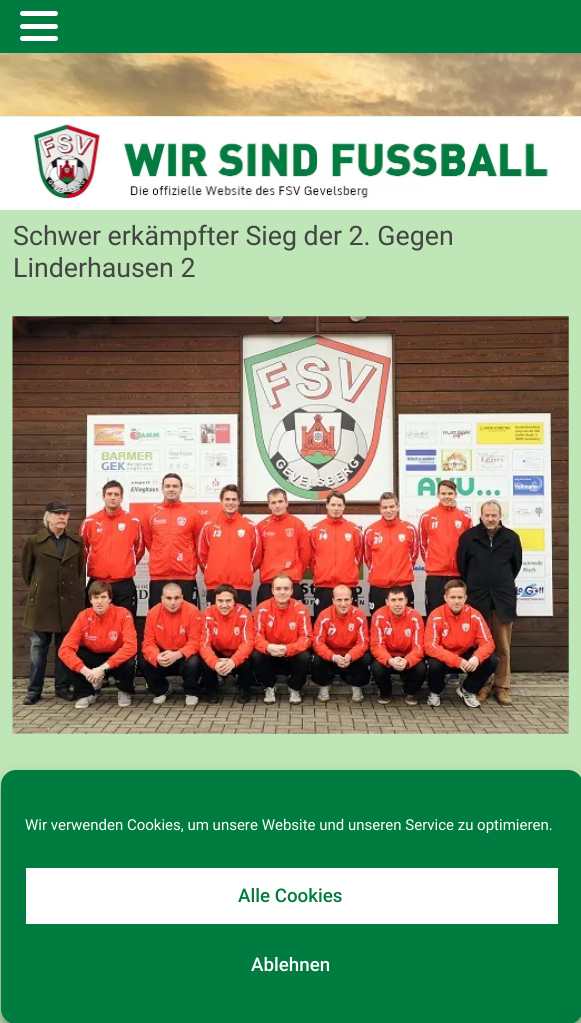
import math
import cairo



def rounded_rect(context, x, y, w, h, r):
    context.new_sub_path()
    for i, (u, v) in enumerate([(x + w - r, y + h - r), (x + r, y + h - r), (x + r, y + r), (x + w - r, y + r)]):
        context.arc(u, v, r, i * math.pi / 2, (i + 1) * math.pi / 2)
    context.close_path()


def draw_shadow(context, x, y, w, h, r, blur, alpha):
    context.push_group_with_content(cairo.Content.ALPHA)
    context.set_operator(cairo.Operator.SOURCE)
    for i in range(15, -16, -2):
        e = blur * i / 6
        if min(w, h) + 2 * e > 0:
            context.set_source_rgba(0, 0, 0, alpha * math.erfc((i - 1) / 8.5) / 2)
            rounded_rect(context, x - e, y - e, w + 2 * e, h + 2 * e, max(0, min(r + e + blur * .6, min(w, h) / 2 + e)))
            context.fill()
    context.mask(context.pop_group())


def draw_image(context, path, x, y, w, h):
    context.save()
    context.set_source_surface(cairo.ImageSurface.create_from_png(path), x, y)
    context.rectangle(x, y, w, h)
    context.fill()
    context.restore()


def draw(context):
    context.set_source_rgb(1, 1, 1)
    context.paint()
    draw_image(context, "images/1.png", 0, 53, 581, 63)
    context.set_source_rgb(0, 124 / 255, 64 / 255)
    context.rectangle(0, 0, 581, 53)
    context.fill()
    context.set_source_rgb(1, 1, 1)
    rounded_rect(context, 20, 11, 38, 5, 2.5)
    context.fill()
    rounded_rect(context, 20, 24, 38, 5, 2.5)
    context.fill()
    rounded_rect(context, 20, 36, 38, 5, 2.5)
    context.fill()
    context.set_source_rgb(191 / 255, 230 / 255, 182 / 255)
    context.rectangle(0, 116, 581, 907)
    context.fill()
    draw_image(context, "images/2.png", 0, 116, 581, 94)
    draw_image(context, "images/3.png", 12, 316, 557, 418)
    context.set_source_rgb(0, 0, 0)
    draw_shadow(context, 1, 778, 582, 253, 15, 4, 0.23)
    draw_shadow(context, 1, 783, 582, 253, 15, 12.5, 0.19)
    context.set_source_rgb(0, 124 / 255, 64 / 255)
    rounded_rect(context, 1, 770, 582, 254, 15)
    context.fill()
    context.set_source_rgb(1, 1, 1)
    context.rectangle(26, 868, 532, 56)
    context.fill()
    context.select_font_face("Roboto")
    context.set_font_size(26.75)
    context.set_source_rgb(68 / 255, 68 / 255, 68 / 255)
    context.move_to(13, 245)
    context.show_text("Schwer erkämpfter Sieg der 2. Gegen")
    context.move_to(13, 277)
    context.show_text("Linderhausen 2")
    context.set_font_size(15)
    context.set_source_rgb(1, 1, 1)
    context.move_to(25, 830)
    context.show_text("Wir verwenden Cookies, um unsere Website und unseren Service zu optimieren.")
    context.select_font_face("Roboto Medium")
    context.set_font_size(18.75)
    context.set_source_rgb(0, 124 / 255, 64 / 255)
    context.move_to(238, 902)
    context.show_text("Alle Cookies")
    context.set_source_rgb(1, 1, 1)
    context.move_to(251, 971)
    context.show_text("Ablehnen")


surface = cairo.ImageSurface(cairo.Format.RGB24, 581, 1023)
context = cairo.Context(surface)
options = cairo.FontOptions()
options.set_hint_metrics(cairo.HintMetrics.OFF)
options.set_hint_style(cairo.HintStyle.NONE)
context.set_font_options(options)
context.set_miter_limit(4)
draw(context)
surface.write_to_png("out.png")
